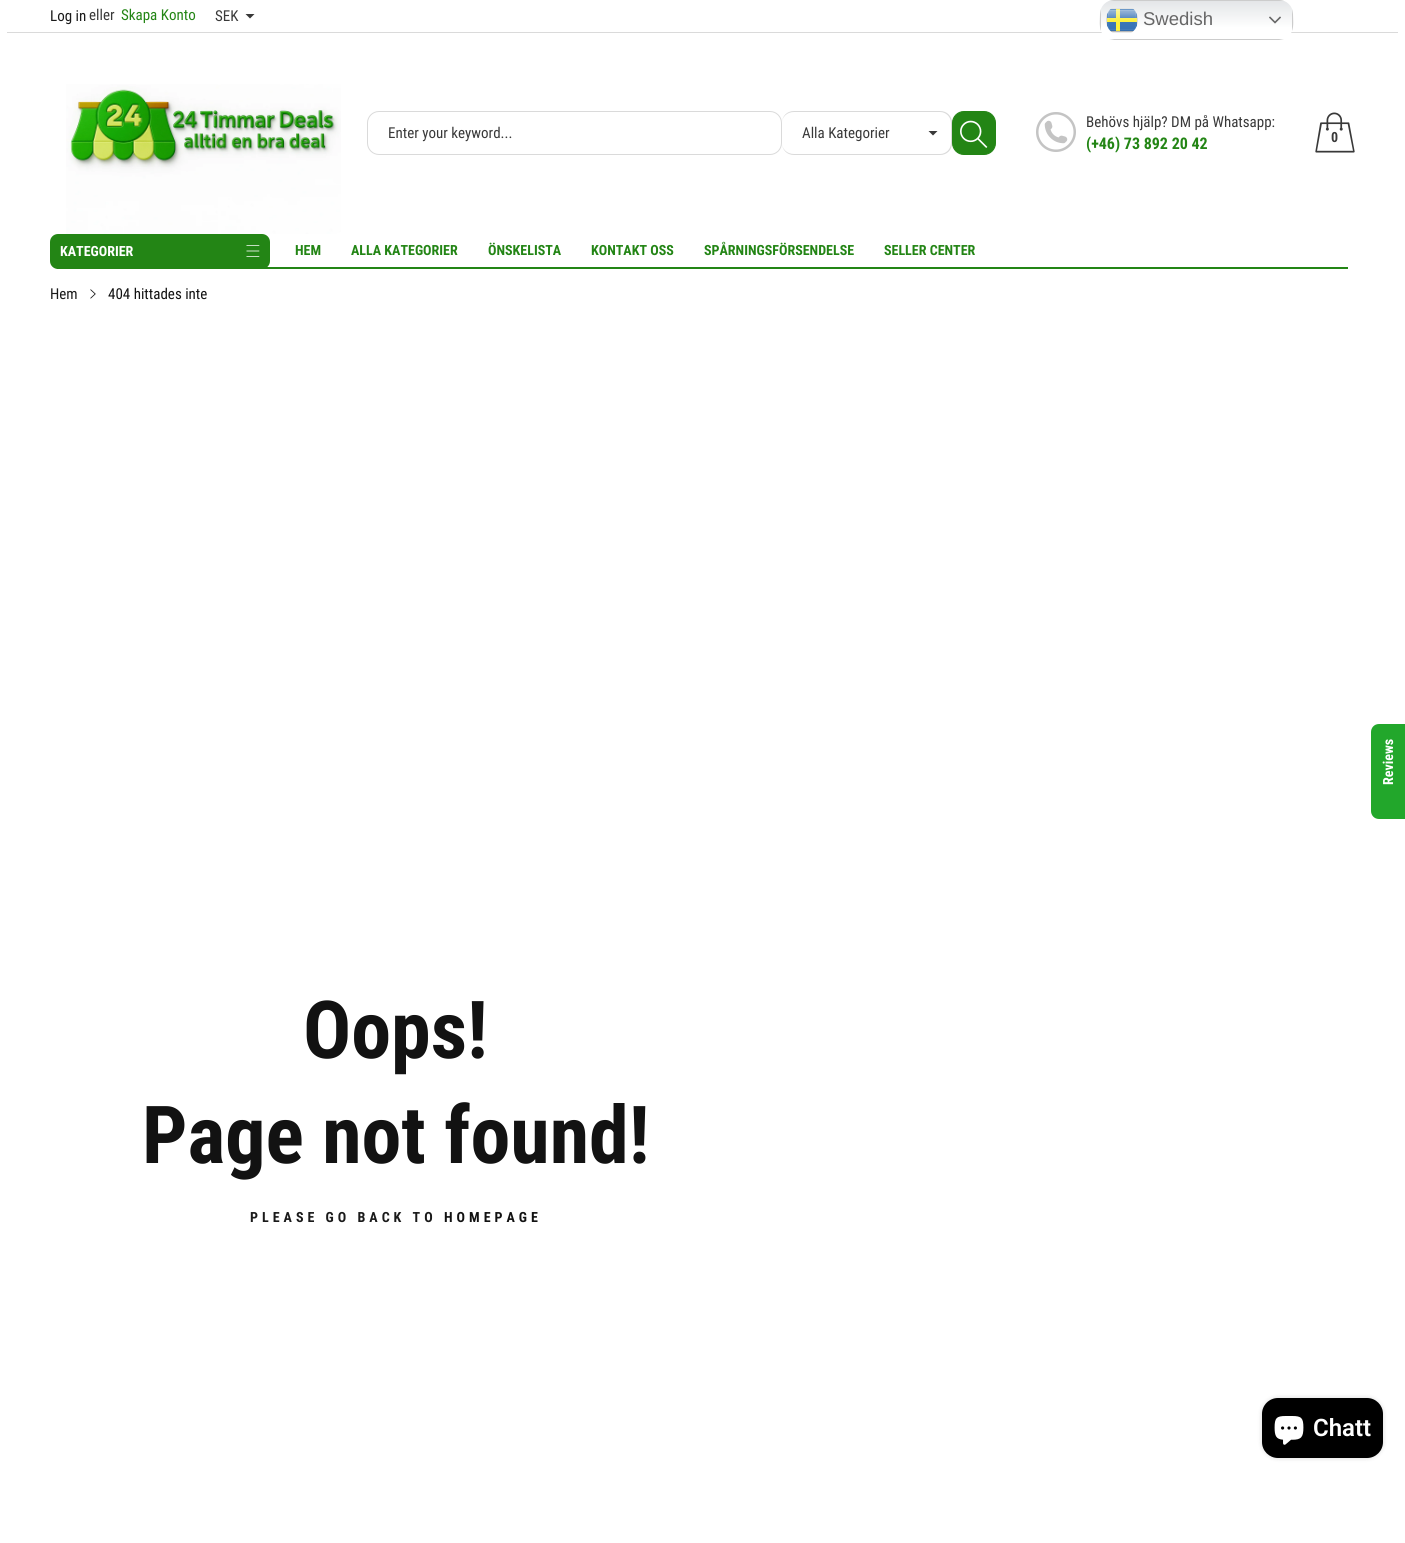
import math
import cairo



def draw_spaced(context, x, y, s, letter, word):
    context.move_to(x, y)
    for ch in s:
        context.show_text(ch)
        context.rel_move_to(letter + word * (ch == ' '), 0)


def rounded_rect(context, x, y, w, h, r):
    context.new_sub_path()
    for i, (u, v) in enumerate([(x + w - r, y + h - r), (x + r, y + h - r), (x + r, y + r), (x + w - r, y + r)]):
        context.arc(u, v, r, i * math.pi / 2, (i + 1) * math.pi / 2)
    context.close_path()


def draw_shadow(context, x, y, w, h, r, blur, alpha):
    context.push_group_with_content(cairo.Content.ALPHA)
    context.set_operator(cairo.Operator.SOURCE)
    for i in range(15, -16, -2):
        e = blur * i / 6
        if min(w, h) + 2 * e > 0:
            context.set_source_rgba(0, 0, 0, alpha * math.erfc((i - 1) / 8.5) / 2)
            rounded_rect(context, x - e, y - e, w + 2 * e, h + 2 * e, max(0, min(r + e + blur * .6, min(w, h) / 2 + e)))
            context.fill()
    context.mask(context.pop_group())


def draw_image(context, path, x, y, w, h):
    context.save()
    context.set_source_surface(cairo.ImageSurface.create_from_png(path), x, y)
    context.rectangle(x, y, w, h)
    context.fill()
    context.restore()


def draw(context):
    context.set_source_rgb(1, 1, 1)
    context.paint()
    context.set_source_rgb(218 / 255, 218 / 255, 218 / 255)
    context.rectangle(7, 32, 1391, 1)
    context.fill()
    context.set_source_rgb(57 / 255, 57 / 255, 57 / 255)
    context.new_path()
    context.move_to(245.5, 14)
    context.line_to(250, 18.5)
    context.line_to(254.5, 14)
    context.close_path()
    context.fill()
    draw_image(context, "images/1.png", 66, 84, 275, 150)
    rounded_rect(context, 367.5, 111.5, 414, 43, 11.5)
    context.set_source_rgb(218 / 255, 218 / 255, 218 / 255)
    context.set_line_width(1)
    context.stroke()
    context.set_source_rgb(57 / 255, 57 / 255, 57 / 255)
    context.new_path()
    context.move_to(928.5, 131)
    context.line_to(933, 135.5)
    context.line_to(937.5, 131)
    context.close_path()
    context.fill()
    context.set_source_rgb(218 / 255, 218 / 255, 218 / 255)
    context.set_fill_rule(cairo.FillRule.EVEN_ODD)
    context.new_path()
    context.move_to(794, 111)
    context.line_to(940, 111)
    context.curve_to(947, 111, 952, 116, 952, 123)
    context.line_to(952, 143)
    context.curve_to(952, 150, 947, 155, 940, 155)
    context.line_to(794, 155)
    context.curve_to(787, 155, 782, 150, 782, 143)
    context.line_to(782, 123)
    context.curve_to(782, 116, 787, 111, 794, 111)
    context.close_path()
    context.move_to(794, 112)
    context.line_to(940, 112)
    context.curve_to(946, 112, 951, 117, 951, 123)
    context.line_to(951, 143)
    context.curve_to(951, 149, 946, 154, 940, 154)
    context.line_to(794, 154)
    context.curve_to(787, 154, 782, 149, 782, 143)
    context.line_to(782, 123)
    context.curve_to(782, 117, 787, 112, 794, 112)
    context.close_path()
    context.fill()
    context.set_source_rgb(35 / 255, 133 / 255, 21 / 255)
    rounded_rect(context, 952.5, 111.5, 43, 43, 11.5)
    context.fill_preserve()
    context.stroke()
    draw_image(context, "images/2.png", 960, 120, 28, 28)
    draw_image(context, "images/3.png", 1036, 112, 40, 40)
    draw_image(context, "images/4.png", 1315, 112, 40, 41)
    context.rectangle(57, 267, 1291, 2)
    context.fill()
    rounded_rect(context, 50, 234, 220, 35, 8)
    context.fill()
    draw_image(context, "images/5.png", 246, 245, 14, 12)
    gradient = cairo.LinearGradient(1197, 0, 1197, 40)
    gradient.add_color_stop_rgba(0, 227 / 255, 229 / 255, 231 / 255, 1)
    gradient.add_color_stop_rgba(0.7, 1, 1, 1, 1)
    context.set_source(gradient)
    rounded_rect(context, 1100, 0, 193, 40, 14)
    context.fill()
    context.set_source_rgb(204 / 255, 204 / 255, 204 / 255)
    context.new_path()
    context.move_to(1100, 14)
    context.curve_to(1100, 19, 1099, 26, 1101, 31)
    context.line_to(1101, 9)
    context.close_path()
    context.move_to(1114, 0)
    context.line_to(1109, 1)
    context.line_to(1284, 1)
    context.line_to(1279, 0)
    context.close_path()
    context.move_to(1293, 14)
    context.line_to(1292, 9)
    context.line_to(1292, 31)
    context.curve_to(1294, 26, 1293, 19, 1293, 14)
    context.close_path()
    context.move_to(1279, 40)
    context.line_to(1284, 39)
    context.line_to(1109, 39)
    context.line_to(1114, 40)
    context.close_path()
    context.fill()
    draw_image(context, "images/6.png", 1106, 8, 32, 25)
    draw_image(context, "images/7.png", 1269, 16, 12, 8)
    draw_image(context, "images/8.png", 90, 289, 6, 10)
    context.set_source_rgb(34 / 255, 167 / 255, 43 / 255)
    context.set_fill_rule(cairo.FillRule.WINDING)
    context.new_path()
    context.move_to(1371, 811)
    context.line_to(1371, 732)
    context.curve_to(1371, 728, 1374, 724, 1379, 724)
    context.line_to(1405, 724)
    context.line_to(1405, 819)
    context.line_to(1379, 819)
    context.curve_to(1374, 819, 1371, 815, 1371, 811)
    context.close_path()
    context.fill()
    context.set_source_rgb(0, 0, 0)
    draw_shadow(context, 1262, 1398, 121, 60, 16, 2.5, 0.15)
    context.set_source_rgb(0, 0, 0)
    rounded_rect(context, 1262, 1398, 121, 60, 16)
    context.fill()
    draw_image(context, "images/9.png", 1274, 1416, 30, 29)
    context.select_font_face("Roboto Condensed")
    context.set_font_size(15)
    context.set_source_rgb(26 / 255, 26 / 255, 26 / 255)
    context.move_to(50, 21)
    context.show_text("Log in")
    context.set_source_rgb(57 / 255, 57 / 255, 57 / 255)
    context.move_to(89, 20)
    context.show_text("eller")
    context.set_source_rgb(35 / 255, 133 / 255, 21 / 255)
    context.move_to(121, 20)
    context.show_text("Skapa Konto")
    context.set_source_rgb(57 / 255, 57 / 255, 57 / 255)
    context.move_to(215, 21)
    context.show_text("SEK")
    context.move_to(388, 138)
    context.show_text("Enter your keyword...")
    context.move_to(802, 138)
    context.show_text("Alla Kategorier")
    context.move_to(1086, 127)
    context.show_text("Behövs hjälp? DM på Whatsapp:")
    context.select_font_face("Roboto Condensed", cairo.FontSlant.NORMAL, cairo.FontWeight.BOLD)
    context.set_font_size(16)
    context.set_source_rgb(35 / 255, 133 / 255, 21 / 255)
    context.move_to(1086, 149)
    context.show_text("(+46) 73 892 20 42")
    context.set_font_size(14)
    context.set_source_rgb(57 / 255, 57 / 255, 57 / 255)
    context.move_to(1331, 142)
    context.show_text("0")
    context.set_source_rgb(1, 1, 1)
    context.move_to(60, 256)
    context.show_text("KATEGORIER")
    context.set_source_rgb(35 / 255, 133 / 255, 21 / 255)
    context.move_to(295, 255)
    context.show_text("HEM")
    context.move_to(351, 255)
    context.show_text("ALLA KATEGORIER")
    context.move_to(488, 255)
    context.show_text("ÖNSKELISTA")
    context.move_to(591, 255)
    context.show_text("KONTAKT OSS")
    context.move_to(704, 255)
    context.show_text("SPÅRNINGSFÖRSENDELSE")
    context.move_to(884, 255)
    context.show_text("SELLER CENTER")
    context.select_font_face("Liberation Sans")
    context.set_font_size(18.5)
    context.set_source_rgb(102 / 255, 102 / 255, 102 / 255)
    context.move_to(1143, 25)
    context.show_text("Swedish")
    context.select_font_face("Roboto Condensed")
    context.set_font_size(15)
    context.set_source_rgb(26 / 255, 26 / 255, 26 / 255)
    context.move_to(50, 299)
    context.show_text("Hem")
    context.set_source_rgb(18 / 255, 18 / 255, 18 / 255)
    context.move_to(108, 299)
    context.show_text("404 hittades inte")
    context.select_font_face("Roboto Condensed", cairo.FontSlant.NORMAL, cairo.FontWeight.BOLD)
    context.set_font_size(80)
    context.move_to(303, 1058)
    context.show_text("Oops!")
    context.move_to(142, 1163)
    context.show_text("Page not found!")
    context.set_font_size(14)
    context.set_source_rgb(26 / 255, 26 / 255, 26 / 255)
    draw_spaced(context, 250, 1222, "PLEASE GO BACK TO", 4, 0)
    context.set_source_rgb(18 / 255, 18 / 255, 18 / 255)
    draw_spaced(context, 444, 1222, "HOMEPAGE", 4, 0)
    context.set_source_rgb(1, 1, 1)
    context.save()
    context.translate(1393, 785)
    context.rotate(-90 * math.pi / 180)
    context.move_to(0, 0)
    context.show_text("Reviews")
    context.restore()
    context.select_font_face("Roboto SemiBold")
    context.set_font_size(24)
    context.move_to(1313, 1436)
    context.show_text("Chatt")


surface = cairo.ImageSurface(cairo.Format.RGB24, 1405, 1543)
context = cairo.Context(surface)
options = cairo.FontOptions()
options.set_hint_metrics(cairo.HintMetrics.OFF)
options.set_hint_style(cairo.HintStyle.NONE)
context.set_font_options(options)
context.set_miter_limit(4)
draw(context)
surface.write_to_png("out.png")
